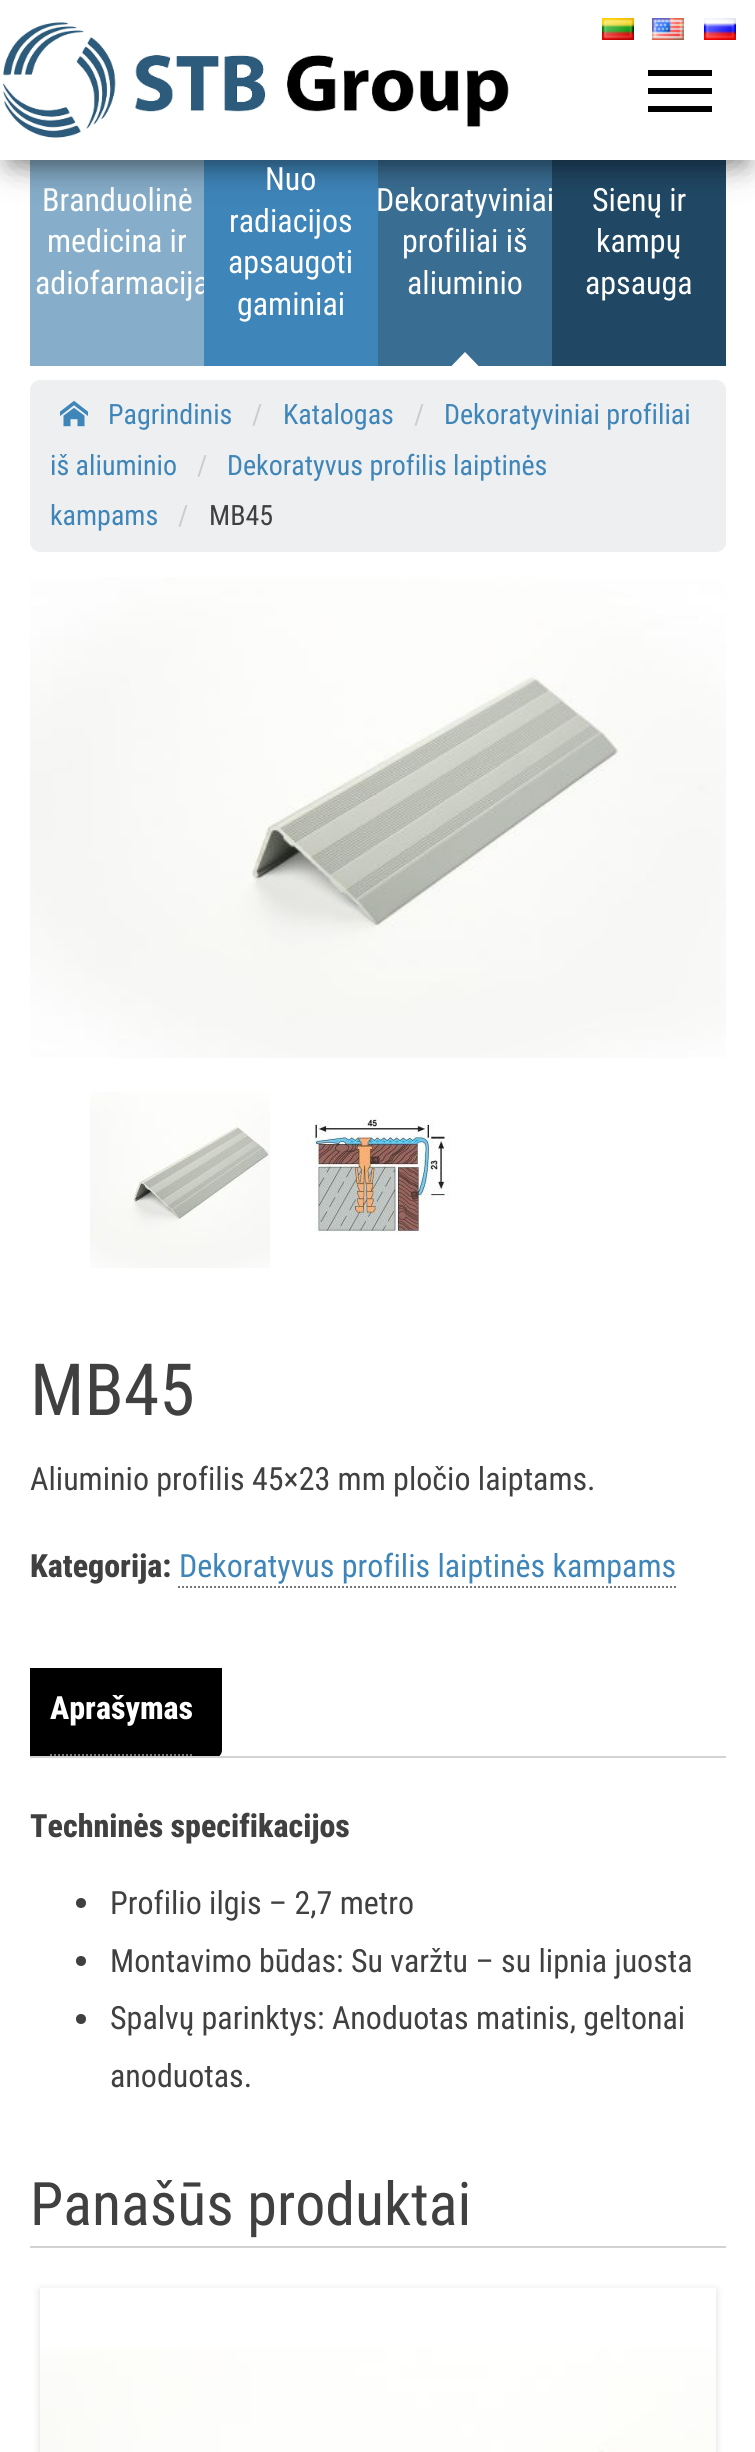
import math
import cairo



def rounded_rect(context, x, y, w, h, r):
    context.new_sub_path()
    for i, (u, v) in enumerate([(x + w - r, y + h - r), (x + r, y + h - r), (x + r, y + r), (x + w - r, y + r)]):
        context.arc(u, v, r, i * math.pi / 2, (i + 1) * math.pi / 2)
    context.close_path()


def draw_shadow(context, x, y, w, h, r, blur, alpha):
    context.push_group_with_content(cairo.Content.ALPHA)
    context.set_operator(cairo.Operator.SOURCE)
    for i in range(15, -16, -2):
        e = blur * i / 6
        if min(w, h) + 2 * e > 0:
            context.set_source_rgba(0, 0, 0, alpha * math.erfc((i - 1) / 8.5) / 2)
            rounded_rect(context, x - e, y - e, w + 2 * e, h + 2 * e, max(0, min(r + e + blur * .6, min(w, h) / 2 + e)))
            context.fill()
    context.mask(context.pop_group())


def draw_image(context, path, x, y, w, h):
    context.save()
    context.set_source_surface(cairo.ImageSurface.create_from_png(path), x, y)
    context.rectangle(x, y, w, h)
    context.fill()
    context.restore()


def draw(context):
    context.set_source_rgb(1, 1, 1)
    context.paint()
    context.set_source_rgb(134 / 255, 173 / 255, 201 / 255)
    context.rectangle(30, 160, 174, 206)
    context.fill()
    context.set_source_rgb(57 / 255, 109 / 255, 146 / 255)
    context.rectangle(378, 160, 174, 206)
    context.fill()
    context.set_source_rgb(237 / 255, 239 / 255, 240 / 255)
    rounded_rect(context, 30, 380, 696, 172, 10)
    context.fill()
    context.set_source_rgb(1, 1, 1)
    context.new_path()
    context.move_to(465, 352)
    context.line_to(479, 366.5)
    context.line_to(465, 380.5)
    context.line_to(451, 366.5)
    context.close_path()
    context.fill()
    context.set_source_rgb(32 / 255, 72 / 255, 101 / 255)
    context.rectangle(552, 160, 174, 206)
    context.fill()
    draw_image(context, "images/5.png", 60, 400, 28, 27)
    draw_image(context, "images/6.png", 30, 577, 696, 481)
    draw_image(context, "images/7.png", 90, 1092, 180, 176)
    draw_image(context, "images/8.png", 306, 1116, 144, 117)
    context.new_path()
    context.move_to(178, 1587)
    context.line_to(676, 1587)
    context.set_source_rgb(119 / 255, 119 / 255, 119 / 255)
    context.set_dash([2, 2])
    context.stroke()
    context.set_source_rgb(211 / 255, 211 / 255, 211 / 255)
    context.rectangle(30, 1756, 696, 2)
    context.fill()
    context.save()
    context.rectangle(30, 1666, 696, 90)
    context.clip()
    context.set_source_rgb(0, 0, 0)
    context.new_path()
    context.move_to(18, 1668)
    context.line_to(222, 1668)
    context.line_to(222, 1750)
    context.curve_to(222, 1754.5, 218.5, 1758, 214, 1758)
    context.line_to(18, 1758)
    context.close_path()
    context.fill()
    context.restore()
    context.new_path()
    context.move_to(50, 1755)
    context.line_to(194, 1755)
    context.set_source_rgb(119 / 255, 119 / 255, 119 / 255)
    context.stroke()
    context.set_source_rgb(64 / 255, 64 / 255, 64 / 255)
    context.arc(81, 1903, 5, 0, 2 * math.pi)
    context.fill()
    context.arc(81, 1961, 5, 0, 2 * math.pi)
    context.fill()
    context.arc(81, 2019, 5, 0, 2 * math.pi)
    context.fill()
    context.set_source_rgb(211 / 255, 211 / 255, 211 / 255)
    context.rectangle(30, 2246, 696, 2)
    context.fill()
    context.save()
    context.set_fill_rule(cairo.FillRule.EVEN_ODD)
    context.new_path()
    context.move_to(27, 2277)
    context.line_to(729, 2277)
    context.line_to(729, 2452)
    context.line_to(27, 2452)
    context.close_path()
    context.move_to(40, 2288)
    context.line_to(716, 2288)
    context.line_to(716, 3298)
    context.line_to(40, 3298)
    context.close_path()
    context.clip()
    context.set_source_rgb(0, 0, 0)
    draw_shadow(context, 40, 2290, 676, 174, 0, 4, 0.14)
    context.restore()
    draw_image(context, "images/9.png", 40, 2347, 676, 105)
    context.select_font_face("Roboto Condensed")
    context.set_font_size(32)
    context.set_source_rgb(1, 1, 1)
    context.move_to(42, 211)
    context.show_text("Branduolinė")
    context.move_to(47, 252)
    context.show_text("medicina ir")
    context.move_to(35, 294)
    context.show_text("adiofarmacija")
    context.set_source_rgb(62 / 255, 133 / 255, 185 / 255)
    context.rectangle(204, 160, 174, 206)
    context.fill()
    context.set_source_rgb(0, 0, 0)
    draw_shadow(context, 24, 44, 708, 112, 0, 20, 0.42)
    draw_shadow(context, 0, 6, 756, 160, 0, 20, 0.12)
    draw_shadow(context, 10, 26, 736, 140, 0, 10, 0.2)
    context.set_source_rgb(1, 1, 1)
    context.rectangle(0, 0, 755, 160)
    context.fill()
    draw_image(context, "images/4.png", 3, 22, 506, 116)
    draw_image(context, "images/3.png", 704, 18, 32, 22)
    draw_image(context, "images/2.png", 652, 18, 32, 22)
    draw_image(context, "images/1.png", 602, 18, 32, 22)
    context.set_source_rgb(0, 0, 0)
    context.rectangle(648, 106, 64, 6)
    context.fill()
    context.rectangle(648, 88, 64, 6)
    context.fill()
    context.rectangle(648, 70, 64, 6)
    context.fill()
    context.set_source_rgb(1, 1, 1)
    context.move_to(265, 190)
    context.show_text("Nuo")
    context.move_to(229, 232)
    context.show_text("radiacijos")
    context.move_to(228, 273)
    context.show_text("apsaugoti")
    context.move_to(237, 315)
    context.show_text("gaminiai")
    context.move_to(376, 211)
    context.show_text("Dekoratyviniai")
    context.move_to(402, 252)
    context.show_text("profiliai iš")
    context.move_to(407, 294)
    context.show_text("aliuminio")
    context.move_to(592, 211)
    context.show_text("Sienų ir")
    context.move_to(596, 252)
    context.show_text("kampų")
    context.move_to(585, 294)
    context.show_text("apsauga")
    context.set_font_size(28)
    context.set_source_rgb(62 / 255, 133 / 255, 185 / 255)
    context.move_to(108, 424)
    context.show_text("Pagrindinis")
    context.set_source_rgb(204 / 255, 204 / 255, 204 / 255)
    context.move_to(252, 424)
    context.show_text("/")
    context.set_source_rgb(62 / 255, 133 / 255, 185 / 255)
    context.move_to(283, 424)
    context.show_text("Katalogas")
    context.set_source_rgb(204 / 255, 204 / 255, 204 / 255)
    context.move_to(414, 424)
    context.show_text("/")
    context.set_source_rgb(62 / 255, 133 / 255, 185 / 255)
    context.move_to(444, 424)
    context.show_text("Dekoratyviniai profiliai")
    context.move_to(50, 475)
    context.show_text("iš aliuminio")
    context.set_source_rgb(204 / 255, 204 / 255, 204 / 255)
    context.move_to(197, 475)
    context.show_text("/")
    context.set_source_rgb(62 / 255, 133 / 255, 185 / 255)
    context.move_to(227, 475)
    context.show_text("Dekoratyvus profilis laiptinės")
    context.move_to(50, 525)
    context.show_text("kampams")
    context.set_source_rgb(204 / 255, 204 / 255, 204 / 255)
    context.move_to(178, 525)
    context.show_text("/")
    context.set_source_rgb(64 / 255, 64 / 255, 64 / 255)
    context.move_to(209, 525)
    context.show_text("MB45")
    context.set_font_size(72)
    context.move_to(30, 1415)
    context.show_text("MB45")
    context.set_font_size(32)
    context.move_to(30, 1490)
    context.show_text("Aliuminio profilis 45×23 mm pločio laiptams.")
    context.select_font_face("Roboto Condensed ExtraBold")
    context.move_to(30, 1577)
    context.show_text("Kategorija:")
    context.select_font_face("Roboto Condensed")
    context.set_source_rgb(62 / 255, 133 / 255, 185 / 255)
    context.move_to(179, 1577)
    context.show_text("Dekoratyvus profilis laiptinės kampams")
    context.select_font_face("Roboto Condensed ExtraBold")
    context.set_source_rgb(1, 1, 1)
    context.move_to(50, 1719)
    context.show_text("Aprašymas")
    context.set_source_rgb(64 / 255, 64 / 255, 64 / 255)
    context.move_to(30, 1837)
    context.show_text("Techninės specifikacijos")
    context.select_font_face("Roboto Condensed")
    context.move_to(110, 1914)
    context.show_text("Profilio ilgis – 2,7 metro")
    context.move_to(110, 1972)
    context.show_text("Montavimo būdas: Su varžtu – su lipnia juosta")
    context.move_to(110, 2029)
    context.show_text("Spalvų parinktys: Anoduotas matinis, geltonai")
    context.move_to(110, 2087)
    context.show_text("anoduotas.")
    context.set_font_size(60)
    context.move_to(30, 2225)
    context.show_text("Panašūs produktai")


surface = cairo.ImageSurface(cairo.Format.RGB24, 755, 2452)
context = cairo.Context(surface)
options = cairo.FontOptions()
options.set_hint_metrics(cairo.HintMetrics.OFF)
options.set_hint_style(cairo.HintStyle.NONE)
context.set_font_options(options)
context.set_miter_limit(4)
draw(context)
surface.write_to_png("out.png")
